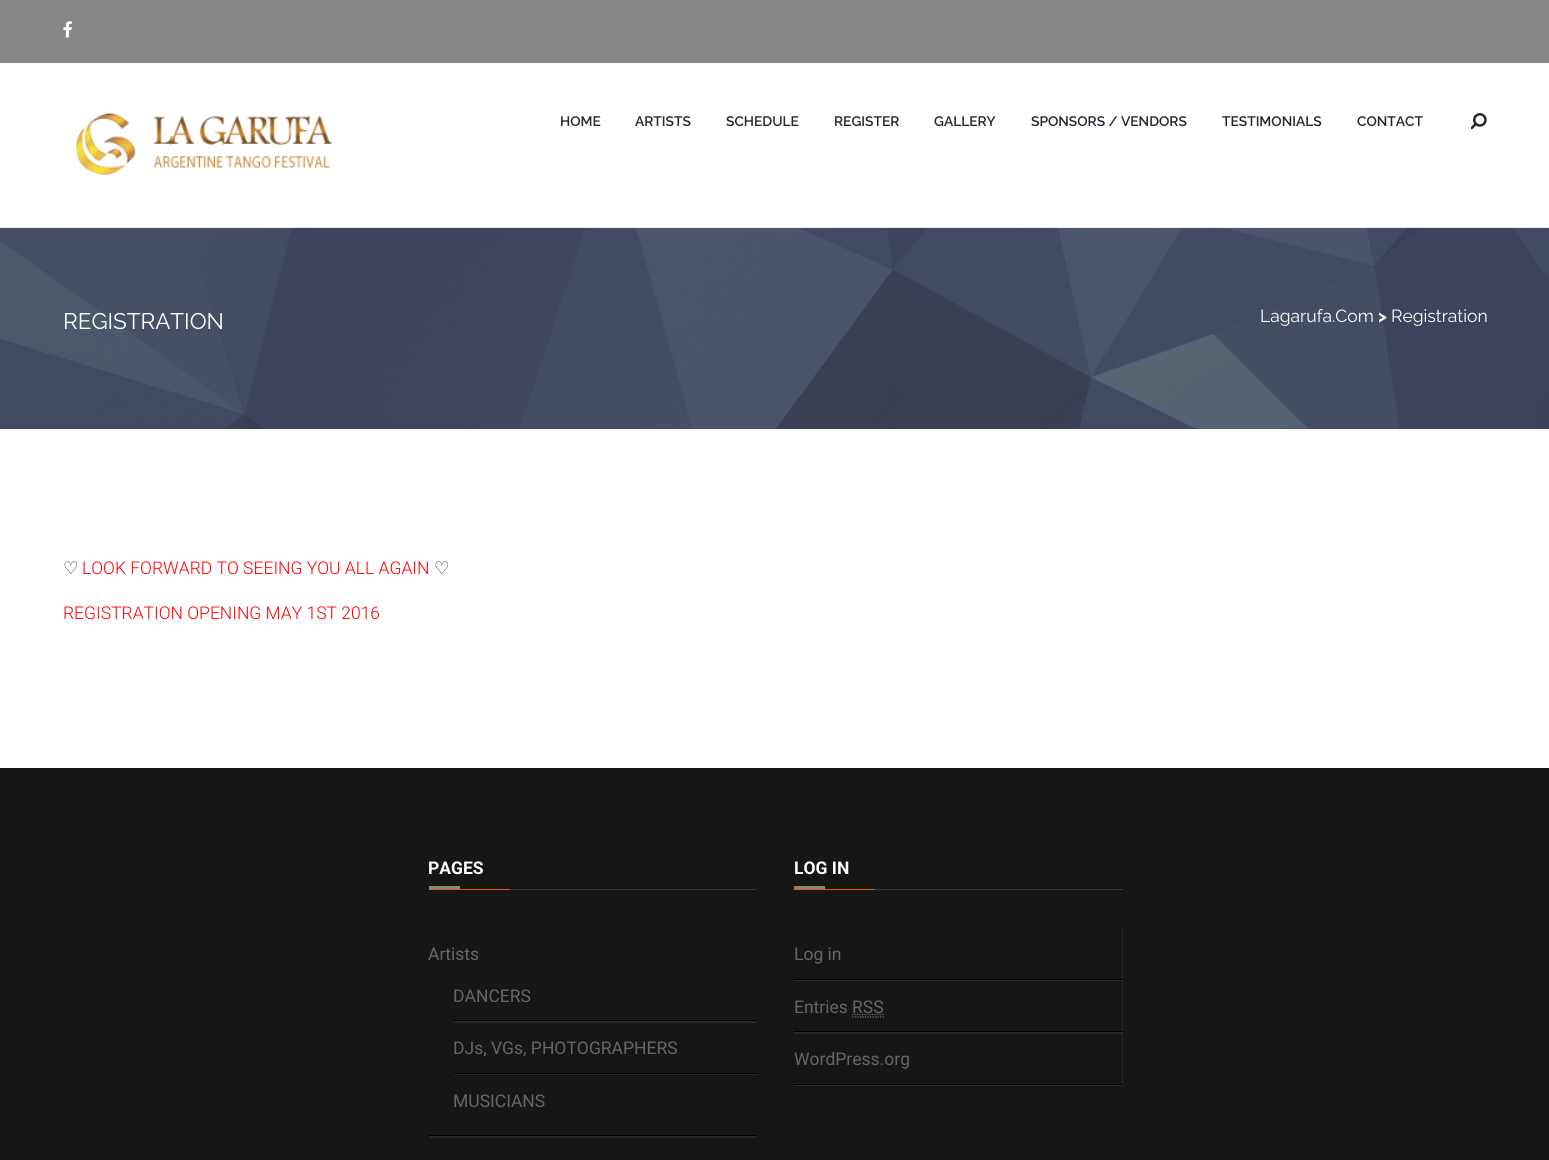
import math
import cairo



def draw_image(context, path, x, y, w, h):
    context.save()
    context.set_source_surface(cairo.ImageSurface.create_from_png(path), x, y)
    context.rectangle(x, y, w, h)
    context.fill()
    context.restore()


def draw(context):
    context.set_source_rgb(1, 1, 1)
    context.paint()
    context.set_source_rgb(135 / 255, 135 / 255, 135 / 255)
    context.rectangle(0, 0, 1549, 63)
    context.fill()
    draw_image(context, "images/1.png", 63, 21, 9, 17)
    draw_image(context, "images/2.png", 76, 112, 257, 64)
    draw_image(context, "images/3.png", 1471, 113, 16, 17)
    context.set_source_rgb(67 / 255, 71 / 255, 88 / 255)
    context.rectangle(0, 228, 1549, 201)
    context.fill()
    draw_image(context, "images/4.png", 0, 227, 1549, 202)
    context.set_source_rgb(22 / 255, 22 / 255, 22 / 255)
    context.rectangle(0, 768, 1549, 392)
    context.fill()
    context.set_source_rgb(55 / 255, 55 / 255, 55 / 255)
    context.rectangle(510, 889, 246, 1)
    context.fill()
    context.set_source_rgb(135 / 255, 135 / 255, 135 / 255)
    context.rectangle(429, 886, 31, 3)
    context.fill()
    context.set_source_rgb(228 / 255, 89 / 255, 20 / 255)
    context.rectangle(429, 889, 81, 1)
    context.fill()
    context.set_source_rgb(40 / 255, 40 / 255, 40 / 255)
    context.rectangle(429, 1136, 327, 2)
    context.fill()
    context.set_source_rgb(0, 0, 0)
    context.rectangle(429, 1135, 327, 1)
    context.fill()
    context.set_source_rgb(40 / 255, 40 / 255, 40 / 255)
    context.rectangle(454, 1021, 302, 2)
    context.fill()
    context.set_source_rgb(0, 0, 0)
    context.rectangle(454, 1020, 302, 1)
    context.fill()
    context.set_source_rgb(40 / 255, 40 / 255, 40 / 255)
    context.rectangle(454, 1074, 302, 1)
    context.fill()
    context.set_source_rgb(0, 0, 0)
    context.rectangle(454, 1073, 302, 1)
    context.fill()
    context.set_source_rgb(55 / 255, 55 / 255, 55 / 255)
    context.rectangle(875, 889, 248, 1)
    context.fill()
    context.set_source_rgb(135 / 255, 135 / 255, 135 / 255)
    context.rectangle(794, 886, 31, 3)
    context.fill()
    context.set_source_rgb(228 / 255, 89 / 255, 20 / 255)
    context.rectangle(794, 889, 81, 1)
    context.fill()
    context.set_source_rgb(40 / 255, 40 / 255, 40 / 255)
    context.new_path()
    context.move_to(794, 980)
    context.line_to(794, 981)
    context.line_to(1123, 981)
    context.line_to(1123, 929)
    context.line_to(1122, 929)
    context.line_to(1122, 980)
    context.close_path()
    context.fill()
    context.set_source_rgb(0, 0, 0)
    context.rectangle(794, 979, 329, 1)
    context.fill()
    context.set_source_rgb(40 / 255, 40 / 255, 40 / 255)
    context.new_path()
    context.move_to(794, 1032)
    context.line_to(794, 1034)
    context.line_to(1123, 1034)
    context.line_to(1123, 981)
    context.line_to(1122, 981)
    context.line_to(1122, 1032)
    context.close_path()
    context.fill()
    context.set_source_rgb(0, 0, 0)
    context.rectangle(794, 1031, 329, 1)
    context.fill()
    context.new_path()
    context.move_to(852.5, 1017)
    context.line_to(884, 1017)
    context.set_source_rgb(119 / 255, 119 / 255, 119 / 255)
    context.set_line_width(1.2)
    context.set_dash([1.25, 1.25])
    context.stroke()
    context.new_path()
    context.move_to(852, 1014.5)
    context.line_to(883.5, 1014.5)
    context.set_source_rgb(102 / 255, 102 / 255, 102 / 255)
    context.stroke()
    context.set_source_rgb(40 / 255, 40 / 255, 40 / 255)
    context.new_path()
    context.move_to(794, 1085)
    context.line_to(794, 1086)
    context.line_to(1123, 1086)
    context.line_to(1123, 1034)
    context.line_to(1122, 1034)
    context.line_to(1122, 1085)
    context.close_path()
    context.fill()
    context.set_source_rgb(0, 0, 0)
    context.rectangle(794, 1084, 329, 1)
    context.fill()
    context.select_font_face("Raleway SemiBold")
    context.set_font_size(13.75)
    context.set_source_rgb(36 / 255, 39 / 255, 50 / 255)
    context.move_to(560, 126)
    context.show_text("HOME")
    context.move_to(635, 126)
    context.show_text("ARTISTS")
    context.move_to(726, 126)
    context.show_text("SCHEDULE")
    context.move_to(834, 126)
    context.show_text("REGISTER")
    context.move_to(934, 126)
    context.show_text("GALLERY")
    context.move_to(1031, 126)
    context.show_text("SPONSORS / VENDORS")
    context.move_to(1222, 126)
    context.show_text("TESTIMONIALS")
    context.move_to(1357, 126)
    context.show_text("CONTACT")
    context.select_font_face("Raleway")
    context.set_font_size(22.5)
    context.set_source_rgb(1, 1, 1)
    context.move_to(63, 329)
    context.show_text("REGISTRATION")
    context.set_font_size(17.5)
    context.move_to(1260, 322)
    context.show_text("Lagarufa.Com")
    context.select_font_face("Raleway", cairo.FontSlant.NORMAL, cairo.FontWeight.BOLD)
    context.move_to(1378, 322)
    context.show_text(">")
    context.select_font_face("Raleway")
    context.move_to(1391, 322)
    context.show_text("Registration")
    context.select_font_face("DejaVu Sans")
    context.set_source_rgb(51 / 255, 51 / 255, 51 / 255)
    context.move_to(63, 574)
    context.show_text("♡")
    context.select_font_face("Roboto Light")
    context.set_source_rgb(1, 0, 0)
    context.move_to(82, 574)
    context.show_text("LOOK FORWARD TO SEEING YOU ALL AGAIN")
    context.select_font_face("DejaVu Sans")
    context.set_source_rgb(51 / 255, 51 / 255, 51 / 255)
    context.move_to(434, 574)
    context.show_text("♡")
    context.select_font_face("Roboto Light")
    context.set_source_rgb(1, 0, 0)
    context.move_to(63, 619)
    context.show_text("REGISTRATION OPENING MAY 1ST 2016")
    context.select_font_face("Roboto", cairo.FontSlant.NORMAL, cairo.FontWeight.BOLD)
    context.set_source_rgb(1, 1, 1)
    context.move_to(428, 874)
    context.show_text("PAGES")
    context.select_font_face("Roboto")
    context.set_source_rgb(102 / 255, 102 / 255, 102 / 255)
    context.move_to(428, 960)
    context.show_text("Artists")
    context.move_to(453, 1002)
    context.show_text("DANCERS")
    context.move_to(453, 1054)
    context.show_text("DJs, VGs, PHOTOGRAPHERS")
    context.move_to(453, 1107)
    context.show_text("MUSICIANS")
    context.select_font_face("Roboto", cairo.FontSlant.NORMAL, cairo.FontWeight.BOLD)
    context.set_source_rgb(1, 1, 1)
    context.move_to(794, 874)
    context.show_text("LOG IN")
    context.select_font_face("Roboto")
    context.set_source_rgb(102 / 255, 102 / 255, 102 / 255)
    context.move_to(794, 960)
    context.show_text("Log in")
    context.move_to(794, 1013)
    context.show_text("Entries")
    context.move_to(852, 1013)
    context.show_text("RSS")
    context.move_to(794, 1065)
    context.show_text("WordPress.org")


surface = cairo.ImageSurface(cairo.Format.RGB24, 1549, 1160)
context = cairo.Context(surface)
options = cairo.FontOptions()
options.set_hint_metrics(cairo.HintMetrics.OFF)
options.set_hint_style(cairo.HintStyle.NONE)
context.set_font_options(options)
context.set_miter_limit(4)
draw(context)
surface.write_to_png("out.png")
